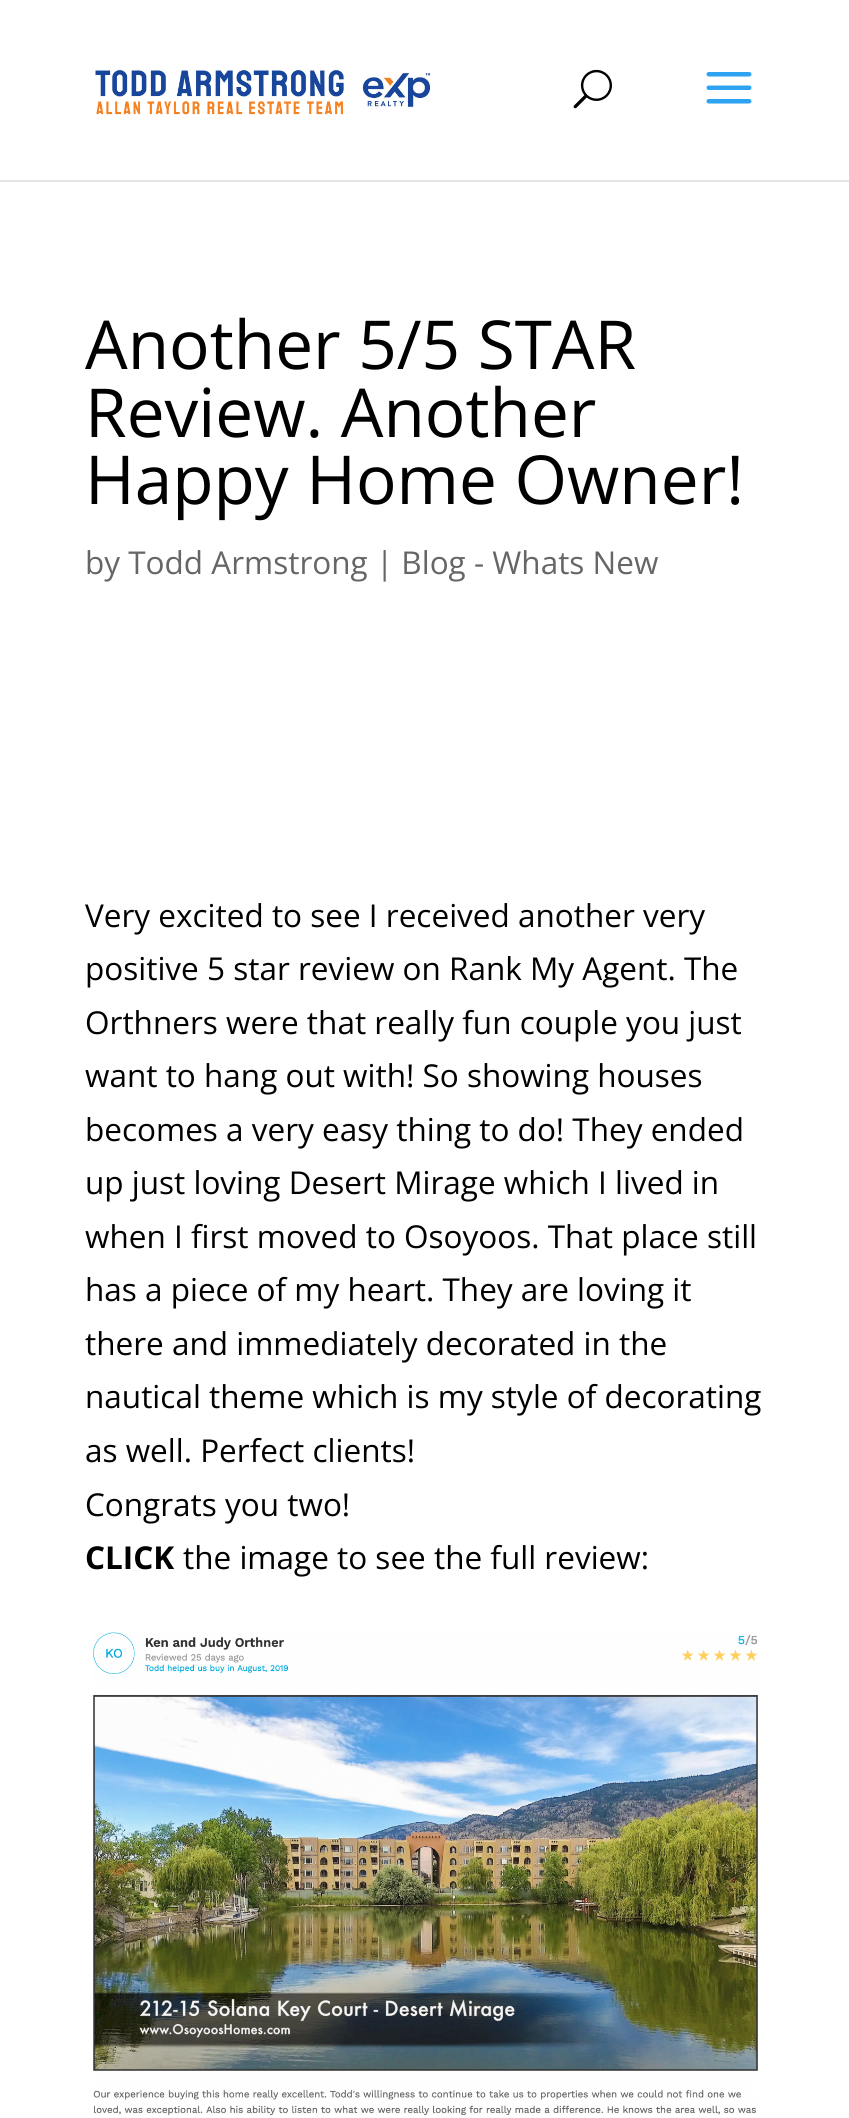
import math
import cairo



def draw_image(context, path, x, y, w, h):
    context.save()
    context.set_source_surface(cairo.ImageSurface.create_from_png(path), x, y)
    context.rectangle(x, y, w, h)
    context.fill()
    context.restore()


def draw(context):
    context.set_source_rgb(1, 1, 1)
    context.paint()
    context.set_source_rgb(230 / 255, 230 / 255, 230 / 255)
    context.new_path()
    context.move_to(0, 180)
    context.line_to(0, 182)
    context.line_to(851, 182)
    context.line_to(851, 2)
    context.line_to(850, 2)
    context.line_to(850, 180)
    context.close_path()
    context.fill()
    draw_image(context, "images/1.png", 95, 69, 336, 46)
    draw_image(context, "images/2.png", 573, 69, 39, 40)
    draw_image(context, "images/3.png", 706, 72, 46, 32)
    draw_image(context, "images/4.png", 93, 1632, 665, 483)
    context.select_font_face("Open Sans")
    context.set_font_size(67.5)
    context.set_source_rgb(0, 0, 0)
    context.move_to(85, 369)
    context.show_text("Another 5/5 STAR")
    context.move_to(85, 437)
    context.show_text("Review. Another")
    context.move_to(85, 504)
    context.show_text("Happy Home Owner!")
    context.set_font_size(31.5)
    context.set_source_rgb(102 / 255, 102 / 255, 102 / 255)
    context.move_to(85, 574)
    context.show_text("by Todd Armstrong | Blog - Whats New")
    context.set_source_rgb(0, 0, 0)
    context.move_to(85, 927)
    context.show_text("Very excited to see I received another very")
    context.move_to(85, 980)
    context.show_text("positive 5 star review on Rank My Agent. The")
    context.move_to(85, 1034)
    context.show_text("Orthners were that really fun couple you just")
    context.move_to(85, 1087)
    context.show_text("want to hang out with! So showing houses")
    context.move_to(85, 1141)
    context.show_text("becomes a very easy thing to do! They ended")
    context.move_to(85, 1194)
    context.show_text("up just loving Desert Mirage which I lived in")
    context.move_to(85, 1248)
    context.show_text("when I first moved to Osoyoos. That place still")
    context.move_to(85, 1301)
    context.show_text("has a piece of my heart. They are loving it")
    context.move_to(85, 1355)
    context.show_text("there and immediately decorated in the")
    context.move_to(85, 1408)
    context.show_text("nautical theme which is my style of decorating")
    context.move_to(85, 1462)
    context.show_text("as well. Perfect clients!")
    context.move_to(85, 1516)
    context.show_text("Congrats you two!")
    context.select_font_face("Open Sans", cairo.FontSlant.NORMAL, cairo.FontWeight.BOLD)
    context.move_to(85, 1569)
    context.show_text("CLICK")
    context.select_font_face("Open Sans")
    context.move_to(183, 1569)
    context.show_text("the image to see the full review:")


surface = cairo.ImageSurface(cairo.Format.RGB24, 849, 2118)
context = cairo.Context(surface)
options = cairo.FontOptions()
options.set_hint_metrics(cairo.HintMetrics.OFF)
options.set_hint_style(cairo.HintStyle.NONE)
context.set_font_options(options)
context.set_miter_limit(4)
draw(context)
surface.write_to_png("out.png")
